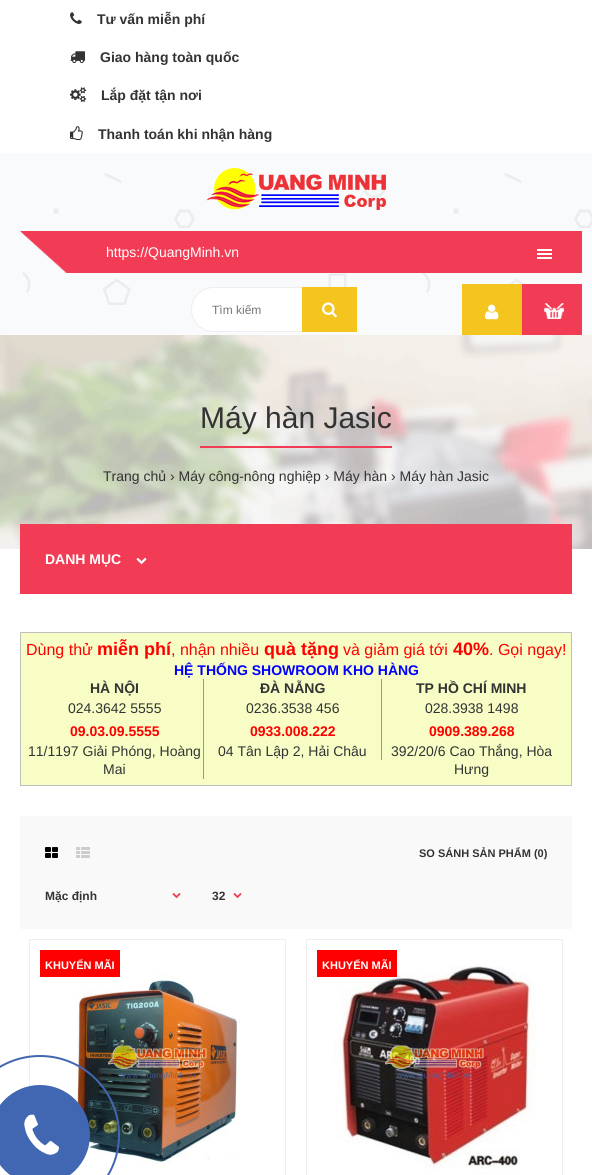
import math
import cairo



def rounded_rect(context, x, y, w, h, r):
    context.new_sub_path()
    for i, (u, v) in enumerate([(x + w - r, y + h - r), (x + r, y + h - r), (x + r, y + r), (x + w - r, y + r)]):
        context.arc(u, v, r, i * math.pi / 2, (i + 1) * math.pi / 2)
    context.close_path()


def draw_image(context, path, x, y, w, h):
    context.save()
    context.set_source_surface(cairo.ImageSurface.create_from_png(path), x, y)
    context.rectangle(x, y, w, h)
    context.fill()
    context.restore()


def draw(context):
    context.set_source_rgb(1, 1, 1)
    context.paint()
    draw_image(context, "images/1.png", 70, 12, 12, 12)
    draw_image(context, "images/2.png", 70, 51, 15, 13)
    draw_image(context, "images/3.png", 70, 87, 17, 15)
    draw_image(context, "images/4.png", 70, 126, 13, 15)
    draw_image(context, "images/5.png", 0, 153, 592, 182)
    draw_image(context, "images/6.png", 206, 168, 180, 42)
    draw_image(context, "images/7.png", 20, 231, 56, 42)
    context.set_source_rgb(242 / 255, 60 / 255, 85 / 255)
    context.rectangle(76, 231, 506, 42)
    context.fill()
    context.set_source_rgb(1, 1, 1)
    context.rectangle(537, 249, 15, 2)
    context.fill()
    context.rectangle(537, 253, 15, 2)
    context.fill()
    context.rectangle(537, 257, 15, 2)
    context.fill()
    rounded_rect(context, 191.5, 287.5, 165, 44, 22)
    context.fill_preserve()
    context.set_source_rgb(238 / 255, 238 / 255, 238 / 255)
    context.set_line_width(1)
    context.stroke()
    context.set_source_rgb(244 / 255, 196 / 255, 31 / 255)
    context.rectangle(302, 287, 55, 45)
    context.fill()
    draw_image(context, "images/8.png", 322, 302, 15, 16)
    context.rectangle(462, 284, 60, 51)
    context.fill()
    draw_image(context, "images/9.png", 485, 304, 14, 16)
    context.set_source_rgb(242 / 255, 60 / 255, 85 / 255)
    context.rectangle(522, 284, 60, 51)
    context.fill()
    draw_image(context, "images/10.png", 544, 303, 20, 16)
    draw_image(context, "images/11.png", 0, 335, 592, 214)
    context.rectangle(200, 446, 192, 2)
    context.fill()
    context.rectangle(20, 524, 552, 70)
    context.fill()
    draw_image(context, "images/12.png", 136, 557, 11, 8)
    context.set_source_rgb(248 / 255, 252 / 255, 197 / 255)
    context.rectangle(20.5, 632.5, 551, 153)
    context.fill_preserve()
    context.set_source_rgb(192 / 255, 192 / 255, 192 / 255)
    context.stroke()
    context.set_source_rgb(153 / 255, 153 / 255, 153 / 255)
    context.rectangle(203, 679, 1, 100)
    context.fill()
    context.rectangle(381, 679, 1, 81)
    context.fill()
    context.set_source_rgb(249 / 255, 249 / 255, 249 / 255)
    context.rectangle(20, 816, 552, 113)
    context.fill()
    draw_image(context, "images/13.png", 45, 847, 13, 11)
    draw_image(context, "images/14.png", 76, 847, 14, 11)
    draw_image(context, "images/15.png", 172, 893, 9, 6)
    draw_image(context, "images/15.png", 233, 893, 9, 6)
    context.rectangle(29.5, 939.5, 256, 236)
    context.set_source_rgb(238 / 255, 238 / 255, 238 / 255)
    context.stroke()
    draw_image(context, "images/16.png", 52, 965, 188, 201)
    context.set_source_rgb(1, 0, 0)
    context.rectangle(40, 950, 80, 27)
    context.fill()
    context.rectangle(306.5, 939.5, 256, 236)
    context.set_source_rgb(238 / 255, 238 / 255, 238 / 255)
    context.stroke()
    draw_image(context, "images/17.png", 334, 966, 203, 208)
    context.set_source_rgb(1, 0, 0)
    context.rectangle(317, 950, 80, 27)
    context.fill()
    context.arc(40, 1135, 79, 0, 2 * math.pi)
    context.set_source_rgb(66 / 255, 103 / 255, 178 / 255)
    context.set_line_width(2)
    context.stroke()
    context.arc(40, 1135, 50, 0, 2 * math.pi)
    context.fill()
    draw_image(context, "images/18.png", 24, 1114, 35, 41)
    context.select_font_face("Liberation Sans", cairo.FontSlant.NORMAL, cairo.FontWeight.BOLD)
    context.set_font_size(14)
    context.set_source_rgb(51 / 255, 51 / 255, 51 / 255)
    context.move_to(97, 24)
    context.show_text("Tư vấn miễn phí")
    context.move_to(100, 62)
    context.show_text("Giao hàng toàn quốc")
    context.move_to(101, 100)
    context.show_text("Lắp đặt tận nơi")
    context.move_to(98, 139)
    context.show_text("Thanh toán khi nhận hàng")
    context.select_font_face("Liberation Sans")
    context.set_source_rgb(1, 1, 1)
    context.move_to(106, 257)
    context.show_text("https://QuangMinh.vn")
    context.set_font_size(12)
    context.set_source_rgb(117 / 255, 117 / 255, 117 / 255)
    context.move_to(212, 314)
    context.show_text("Tìm kiếm")
    context.set_font_size(30)
    context.set_source_rgb(51 / 255, 51 / 255, 51 / 255)
    context.move_to(200, 428)
    context.show_text("Máy hàn Jasic")
    context.set_font_size(14)
    context.move_to(103, 481)
    context.show_text("Trang chủ › Máy công-nông nghiệp › Máy hàn › Máy hàn Jasic")
    context.select_font_face("Liberation Sans", cairo.FontSlant.NORMAL, cairo.FontWeight.BOLD)
    context.set_source_rgb(1, 1, 1)
    context.move_to(45, 564)
    context.show_text("DANH MỤC")
    context.select_font_face("Liberation Sans")
    context.set_font_size(16)
    context.set_source_rgb(1, 0, 0)
    context.move_to(26, 655)
    context.show_text("Dùng thử")
    context.select_font_face("Liberation Sans", cairo.FontSlant.NORMAL, cairo.FontWeight.BOLD)
    context.set_font_size(18)
    context.move_to(97, 655)
    context.show_text("miễn phí")
    context.select_font_face("Liberation Sans")
    context.set_font_size(16)
    context.move_to(171, 655)
    context.show_text(", nhận nhiều")
    context.select_font_face("Liberation Sans", cairo.FontSlant.NORMAL, cairo.FontWeight.BOLD)
    context.set_font_size(18)
    context.move_to(264, 655)
    context.show_text("quà tặng")
    context.select_font_face("Liberation Sans")
    context.set_font_size(16)
    context.move_to(343, 655)
    context.show_text("và giảm giá tới")
    context.select_font_face("Liberation Sans", cairo.FontSlant.NORMAL, cairo.FontWeight.BOLD)
    context.set_font_size(18)
    context.move_to(453, 655)
    context.show_text("40%")
    context.select_font_face("Liberation Sans")
    context.set_font_size(16)
    context.move_to(489, 655)
    context.show_text(". Gọi ngay!")
    context.select_font_face("Liberation Sans", cairo.FontSlant.NORMAL, cairo.FontWeight.BOLD)
    context.set_font_size(14)
    context.set_source_rgb(0, 0, 1)
    context.move_to(174, 675)
    context.show_text("HỆ THỐNG SHOWROOM KHO HÀNG")
    context.set_source_rgb(51 / 255, 51 / 255, 51 / 255)
    context.move_to(90, 693)
    context.show_text("HÀ NỘI")
    context.select_font_face("Liberation Sans")
    context.move_to(68, 713)
    context.show_text("024.3642 5555")
    context.select_font_face("Liberation Sans", cairo.FontSlant.NORMAL, cairo.FontWeight.BOLD)
    context.set_source_rgb(1, 0, 0)
    context.move_to(70, 736)
    context.show_text("09.03.09.5555")
    context.select_font_face("Liberation Sans")
    context.set_source_rgb(51 / 255, 51 / 255, 51 / 255)
    context.move_to(28, 756)
    context.show_text("11/1197 Giải Phóng, Hoàng")
    context.move_to(103, 774)
    context.show_text("Mai")
    context.select_font_face("Liberation Sans", cairo.FontSlant.NORMAL, cairo.FontWeight.BOLD)
    context.move_to(260, 693)
    context.show_text("ĐÀ NẴNG")
    context.select_font_face("Liberation Sans")
    context.move_to(246, 713)
    context.show_text("0236.3538 456")
    context.select_font_face("Liberation Sans", cairo.FontSlant.NORMAL, cairo.FontWeight.BOLD)
    context.set_source_rgb(1, 0, 0)
    context.move_to(250, 736)
    context.show_text("0933.008.222")
    context.select_font_face("Liberation Sans")
    context.set_source_rgb(51 / 255, 51 / 255, 51 / 255)
    context.move_to(218, 756)
    context.show_text("04 Tân Lập 2, Hải Châu")
    context.select_font_face("Liberation Sans", cairo.FontSlant.NORMAL, cairo.FontWeight.BOLD)
    context.move_to(416, 693)
    context.show_text("TP HỒ CHÍ MINH")
    context.select_font_face("Liberation Sans")
    context.move_to(425, 713)
    context.show_text("028.3938 1498")
    context.select_font_face("Liberation Sans", cairo.FontSlant.NORMAL, cairo.FontWeight.BOLD)
    context.set_source_rgb(1, 0, 0)
    context.move_to(429, 736)
    context.show_text("0909.389.268")
    context.select_font_face("Liberation Sans")
    context.set_source_rgb(51 / 255, 51 / 255, 51 / 255)
    context.move_to(391, 756)
    context.show_text("392/20/6 Cao Thắng, Hòa")
    context.move_to(454, 774)
    context.show_text("Hưng")
    context.select_font_face("Liberation Sans", cairo.FontSlant.NORMAL, cairo.FontWeight.BOLD)
    context.set_font_size(11)
    context.move_to(419, 857)
    context.show_text("SO SÁNH SẢN PHẨM (0)")
    context.set_font_size(12)
    context.move_to(45, 900)
    context.show_text("Mặc định")
    context.move_to(212, 900)
    context.show_text("32")
    context.set_font_size(11)
    context.set_source_rgb(1, 1, 1)
    context.move_to(45, 969)
    context.show_text("KHUYẾN MÃI")
    context.move_to(322, 969)
    context.show_text("KHUYẾN MÃI")


surface = cairo.ImageSurface(cairo.Format.RGB24, 592, 1175)
context = cairo.Context(surface)
options = cairo.FontOptions()
options.set_hint_metrics(cairo.HintMetrics.OFF)
options.set_hint_style(cairo.HintStyle.NONE)
context.set_font_options(options)
context.set_miter_limit(4)
draw(context)
surface.write_to_png("out.png")
